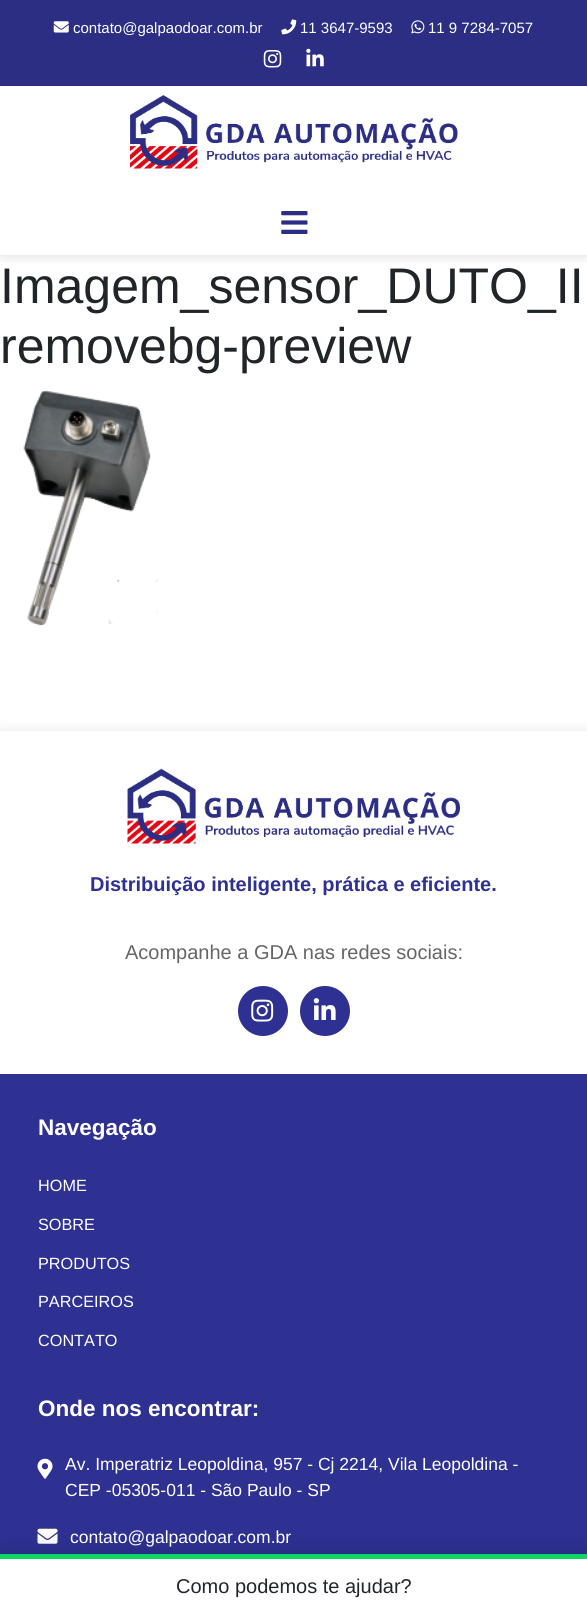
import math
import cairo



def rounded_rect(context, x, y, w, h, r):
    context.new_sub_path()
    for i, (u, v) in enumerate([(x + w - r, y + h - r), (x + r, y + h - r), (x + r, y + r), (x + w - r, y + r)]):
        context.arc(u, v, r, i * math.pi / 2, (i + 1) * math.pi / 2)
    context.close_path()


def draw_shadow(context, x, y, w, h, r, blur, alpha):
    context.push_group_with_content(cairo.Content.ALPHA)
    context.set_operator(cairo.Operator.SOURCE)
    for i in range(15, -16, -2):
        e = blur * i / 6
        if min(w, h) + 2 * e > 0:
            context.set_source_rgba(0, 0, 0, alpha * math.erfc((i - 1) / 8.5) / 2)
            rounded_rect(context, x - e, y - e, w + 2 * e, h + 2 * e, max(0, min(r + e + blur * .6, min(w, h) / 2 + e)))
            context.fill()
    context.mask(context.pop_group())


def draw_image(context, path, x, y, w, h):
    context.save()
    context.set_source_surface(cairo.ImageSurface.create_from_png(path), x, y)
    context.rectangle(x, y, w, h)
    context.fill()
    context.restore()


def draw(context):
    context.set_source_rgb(1, 1, 1)
    context.paint()
    context.save()
    context.rectangle(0, 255, 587, 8)
    context.clip()
    context.set_source_rgb(0, 0, 0)
    draw_shadow(context, 0, 3, 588, 255, 0, 6, 0.1)
    context.restore()
    context.set_source_rgb(43 / 255, 46 / 255, 131 / 255)
    context.rectangle(0, 0, 587, 86)
    context.fill()
    draw_image(context, "images/1.png", 53, 21, 16, 12)
    draw_image(context, "images/2.png", 281, 19, 16, 16)
    draw_image(context, "images/3.png", 411, 20, 14, 14)
    draw_image(context, "images/4.png", 263, 49, 19, 19)
    draw_image(context, "images/5.png", 306, 48, 18, 19)
    draw_image(context, "images/6.png", 130, 95, 328, 74)
    draw_image(context, "images/7.png", 281, 211, 27, 23)
    draw_image(context, "images/8.png", 23, 390, 135, 236)
    context.set_source_rgb(0, 0, 0)
    draw_shadow(context, 0, 731, 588, 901, 0, 6, 0.1)
    context.set_source_rgb(1, 1, 1)
    context.rectangle(0, 731, 587, 343)
    context.fill()
    draw_image(context, "images/9.png", 127, 768, 333, 76)
    context.set_source_rgb(46 / 255, 49 / 255, 146 / 255)
    context.arc(263, 1011, 25, 0, 2 * math.pi)
    context.fill()
    draw_image(context, "images/10.png", 251, 999, 23, 23)
    context.arc(325, 1011, 25, 0, 2 * math.pi)
    context.fill()
    draw_image(context, "images/11.png", 313, 998, 23, 22)
    context.rectangle(0, 1074, 587, 480)
    context.fill()
    draw_image(context, "images/12.png", 37, 1458, 16, 21)
    draw_image(context, "images/13.png", 37, 1528, 21, 16)
    context.set_source_rgb(0, 0, 0)
    draw_shadow(context, 0, 1554, 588, 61, 0, 12.5, 0.2)
    context.set_source_rgb(1, 1, 1)
    context.rectangle(0, 1559, 587, 55)
    context.fill()
    context.set_source_rgb(12 / 255, 214 / 255, 100 / 255)
    context.rectangle(0, 1554, 587, 5)
    context.fill()
    context.select_font_face("Liberation Sans")
    context.set_font_size(15)
    context.set_source_rgb(1, 1, 1)
    context.move_to(73, 33)
    context.show_text("contato@galpaodoar.com.br")
    context.move_to(300, 33)
    context.show_text("11 3647-9593")
    context.move_to(428, 33)
    context.show_text("11 9 7284-7057")
    context.set_font_size(50)
    context.set_source_rgb(33 / 255, 37 / 255, 41 / 255)
    context.move_to(0, 303)
    context.show_text("Imagem_sensor_DUTO_II")
    context.move_to(0, 363)
    context.show_text("removebg-preview")
    context.select_font_face("Liberation Sans", cairo.FontSlant.NORMAL, cairo.FontWeight.BOLD)
    context.set_font_size(20)
    context.set_source_rgb(46 / 255, 49 / 255, 146 / 255)
    context.move_to(90, 891)
    context.show_text("Distribuição inteligente, prática e eficiente.")
    context.select_font_face("Liberation Sans")
    context.set_source_rgb(102 / 255, 102 / 255, 102 / 255)
    context.move_to(125, 959)
    context.show_text("Acompanhe a GDA nas redes sociais:")
    context.select_font_face("Liberation Sans", cairo.FontSlant.NORMAL, cairo.FontWeight.BOLD)
    context.set_font_size(22.5)
    context.set_source_rgb(1, 1, 1)
    context.move_to(38, 1135)
    context.show_text("Navegação")
    context.select_font_face("Liberation Sans")
    context.set_font_size(16.25)
    context.move_to(38, 1191)
    context.show_text("HOME")
    context.move_to(38, 1230)
    context.show_text("SOBRE")
    context.move_to(38, 1269)
    context.show_text("PRODUTOS")
    context.move_to(38, 1307)
    context.show_text("PARCEIROS")
    context.move_to(38, 1346)
    context.show_text("CONTATO")
    context.select_font_face("Liberation Sans", cairo.FontSlant.NORMAL, cairo.FontWeight.BOLD)
    context.set_font_size(22.5)
    context.move_to(38, 1416)
    context.show_text("Onde nos encontrar:")
    context.select_font_face("Liberation Sans")
    context.set_font_size(17.5)
    context.move_to(65, 1470)
    context.show_text("Av. Imperatriz Leopoldina, 957 - Cj 2214, Vila Leopoldina -")
    context.move_to(65, 1496)
    context.show_text("CEP -05305-011 - São Paulo - SP")
    context.move_to(70, 1543)
    context.show_text("contato@galpaodoar.com.br")
    context.set_font_size(20)
    context.set_source_rgb(33 / 255, 37 / 255, 41 / 255)
    context.move_to(176, 1593)
    context.show_text("Como podemos te ajudar?")


surface = cairo.ImageSurface(cairo.Format.RGB24, 587, 1614)
context = cairo.Context(surface)
options = cairo.FontOptions()
options.set_hint_metrics(cairo.HintMetrics.OFF)
options.set_hint_style(cairo.HintStyle.NONE)
context.set_font_options(options)
context.set_miter_limit(4)
draw(context)
surface.write_to_png("out.png")
